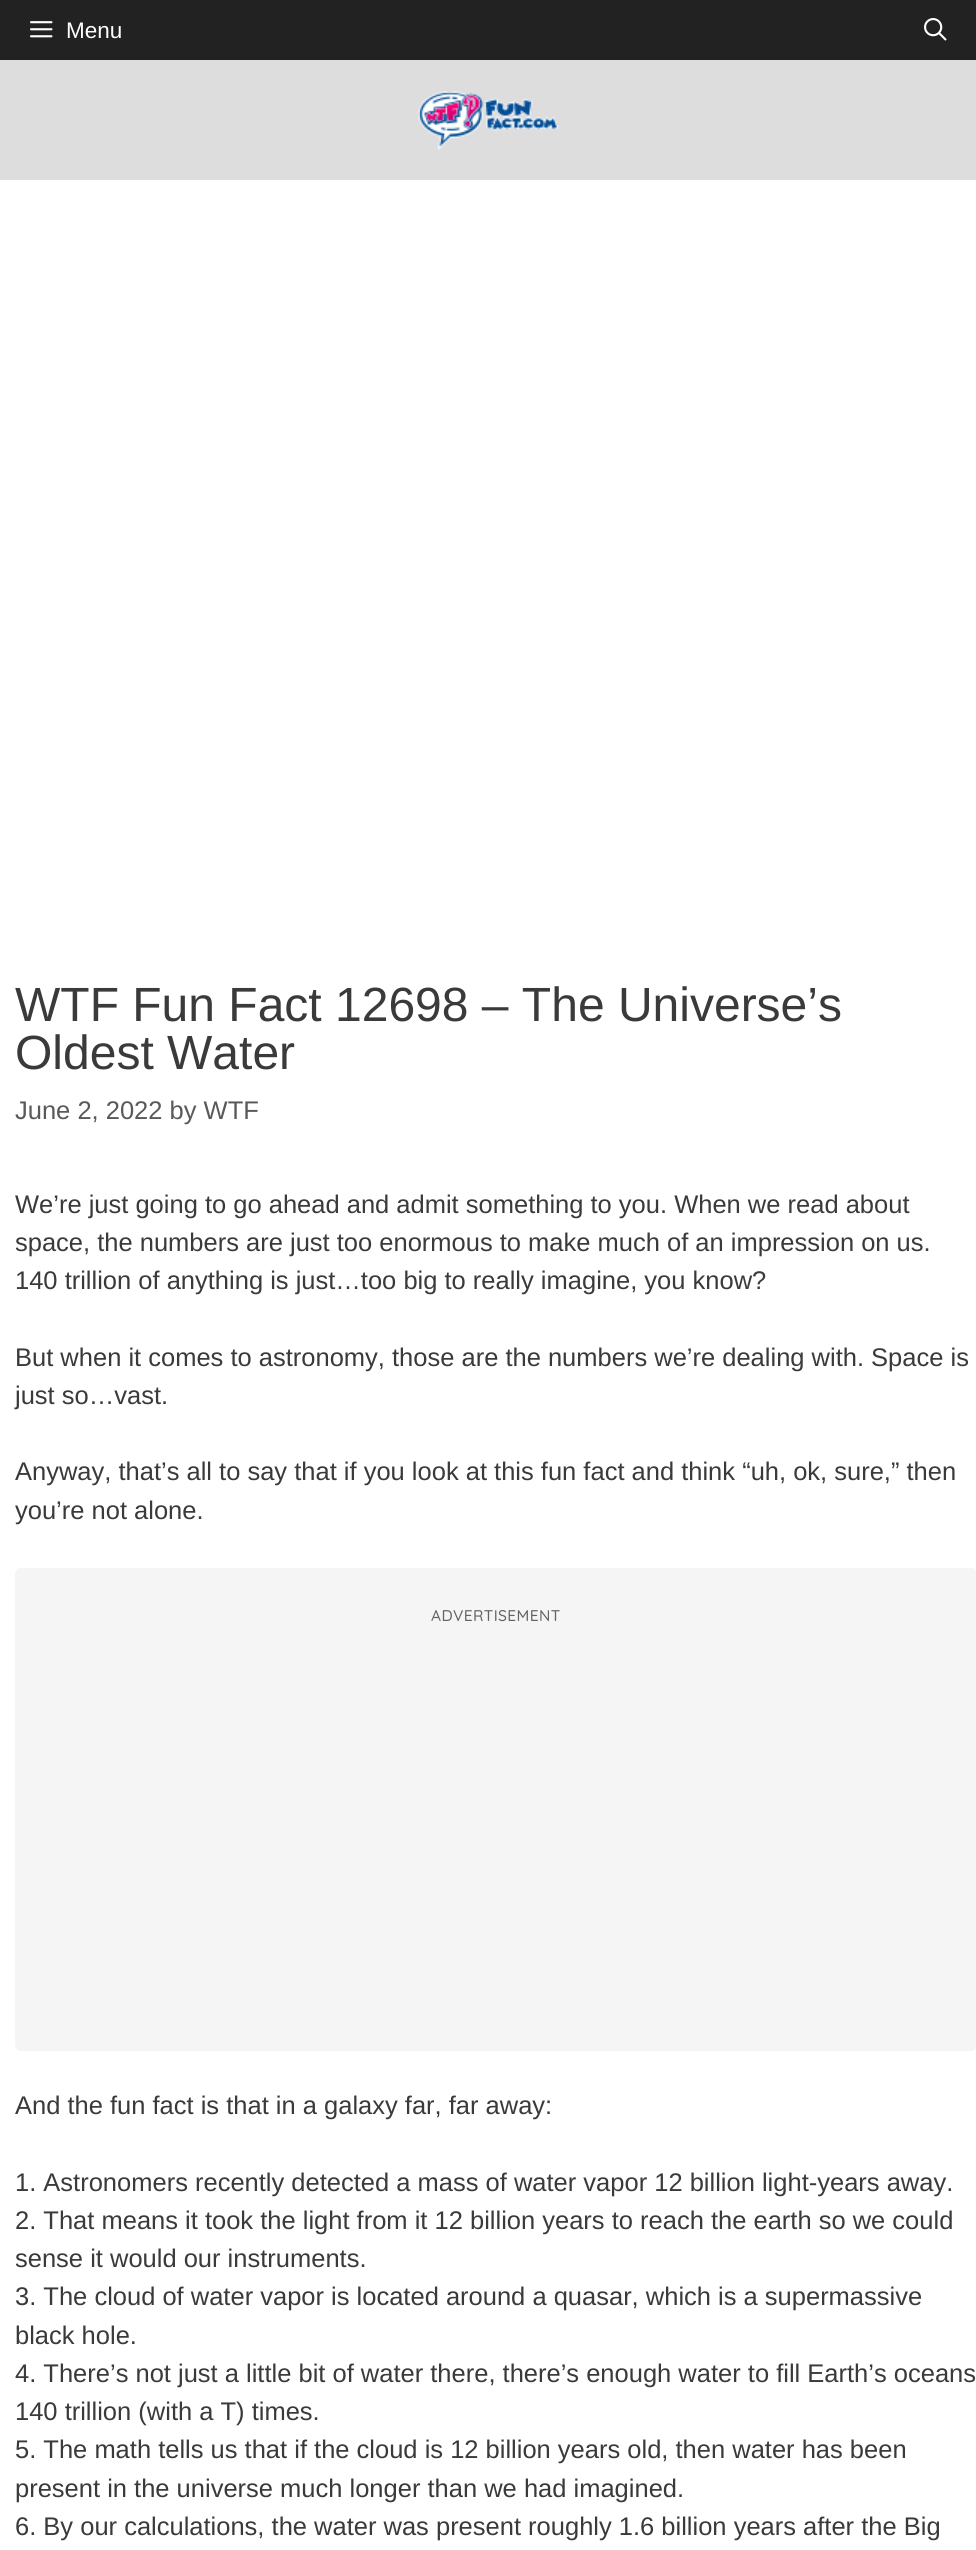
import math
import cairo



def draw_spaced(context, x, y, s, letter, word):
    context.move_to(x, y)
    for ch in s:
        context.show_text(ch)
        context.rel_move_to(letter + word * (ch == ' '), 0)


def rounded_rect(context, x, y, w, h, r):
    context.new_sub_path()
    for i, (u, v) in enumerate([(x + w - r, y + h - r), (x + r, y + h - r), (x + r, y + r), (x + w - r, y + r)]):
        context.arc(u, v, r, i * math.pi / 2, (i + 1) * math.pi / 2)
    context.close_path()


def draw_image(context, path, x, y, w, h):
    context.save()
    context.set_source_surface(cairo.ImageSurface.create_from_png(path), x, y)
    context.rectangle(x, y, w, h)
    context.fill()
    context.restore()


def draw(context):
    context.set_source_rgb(221 / 255, 221 / 255, 221 / 255)
    context.paint()
    context.set_source_rgb(34 / 255, 34 / 255, 34 / 255)
    context.rectangle(0, 0, 976, 60)
    context.fill()
    draw_image(context, "images/1.png", 30, 21, 23, 17)
    draw_image(context, "images/2.png", 924, 18, 23, 23)
    draw_image(context, "images/3.png", 418, 91, 140, 59)
    context.set_source_rgb(1, 1, 1)
    context.rectangle(0, 180, 976, 2370)
    context.fill()
    context.set_source_rgb(245 / 255, 245 / 255, 245 / 255)
    rounded_rect(context, 15, 1568, 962, 483, 6)
    context.fill()
    context.select_font_face("Liberation Sans")
    context.set_font_size(22.5)
    context.set_source_rgb(1, 1, 1)
    context.move_to(66, 38)
    context.show_text("Menu")
    context.set_font_size(48)
    context.set_source_rgb(58 / 255, 58 / 255, 58 / 255)
    context.move_to(15, 1021)
    context.show_text("WTF Fun Fact 12698 – The Universe’s")
    context.move_to(15, 1069)
    context.show_text("Oldest Water")
    context.set_font_size(25.5)
    context.set_source_rgb(89 / 255, 89 / 255, 89 / 255)
    context.move_to(15, 1119)
    context.show_text("June 2, 2022 by WTF")
    context.set_source_rgb(58 / 255, 58 / 255, 58 / 255)
    context.move_to(15, 1213)
    context.show_text("We’re just going to go ahead and admit something to you. When we read about")
    context.move_to(15, 1251)
    context.show_text("space, the numbers are just too enormous to make much of an impression on us.")
    context.move_to(15, 1289)
    context.show_text("140 trillion of anything is just…too big to really imagine, you know?")
    context.move_to(15, 1366)
    context.show_text("But when it comes to astronomy, those are the numbers we’re dealing with. Space is")
    context.move_to(15, 1404)
    context.show_text("just so…vast.")
    context.move_to(15, 1480)
    context.show_text("Anyway, that’s all to say that if you look at this fun fact and think “uh, ok, sure,” then")
    context.move_to(15, 1519)
    context.show_text("you’re not alone.")
    context.select_font_face("Quicksand Medium")
    context.set_font_size(15.5)
    context.set_source_rgb(99 / 255, 99 / 255, 99 / 255)
    draw_spaced(context, 431, 1621, "ADVERTISEMENT", 0.4, 0)
    context.select_font_face("Liberation Sans")
    context.set_font_size(25.5)
    context.set_source_rgb(58 / 255, 58 / 255, 58 / 255)
    context.move_to(15, 2114)
    context.show_text("And the fun fact is that in a galaxy far, far away:")
    context.move_to(15, 2191)
    context.show_text("1. Astronomers recently detected a mass of water vapor 12 billion light-years away.")
    context.move_to(15, 2229)
    context.show_text("2. That means it took the light from it 12 billion years to reach the earth so we could")
    context.move_to(15, 2267)
    context.show_text("sense it would our instruments.")
    context.move_to(15, 2305)
    context.show_text("3. The cloud of water vapor is located around a quasar, which is a supermassive")
    context.move_to(15, 2344)
    context.show_text("black hole.")
    context.move_to(15, 2382)
    context.show_text("4. There’s not just a little bit of water there, there’s enough water to fill Earth’s oceans")
    context.move_to(15, 2420)
    context.show_text("140 trillion (with a T) times.")
    context.move_to(15, 2458)
    context.show_text("5. The math tells us that if the cloud is 12 billion years old, then water has been")
    context.move_to(15, 2497)
    context.show_text("present in the universe much longer than we had imagined.")
    context.move_to(15, 2535)
    context.show_text("6. By our calculations, the water was present roughly 1.6 billion years after the Big")


surface = cairo.ImageSurface(cairo.Format.RGB24, 976, 2550)
context = cairo.Context(surface)
options = cairo.FontOptions()
options.set_hint_metrics(cairo.HintMetrics.OFF)
options.set_hint_style(cairo.HintStyle.NONE)
context.set_font_options(options)
context.set_miter_limit(4)
draw(context)
surface.write_to_png("out.png")
